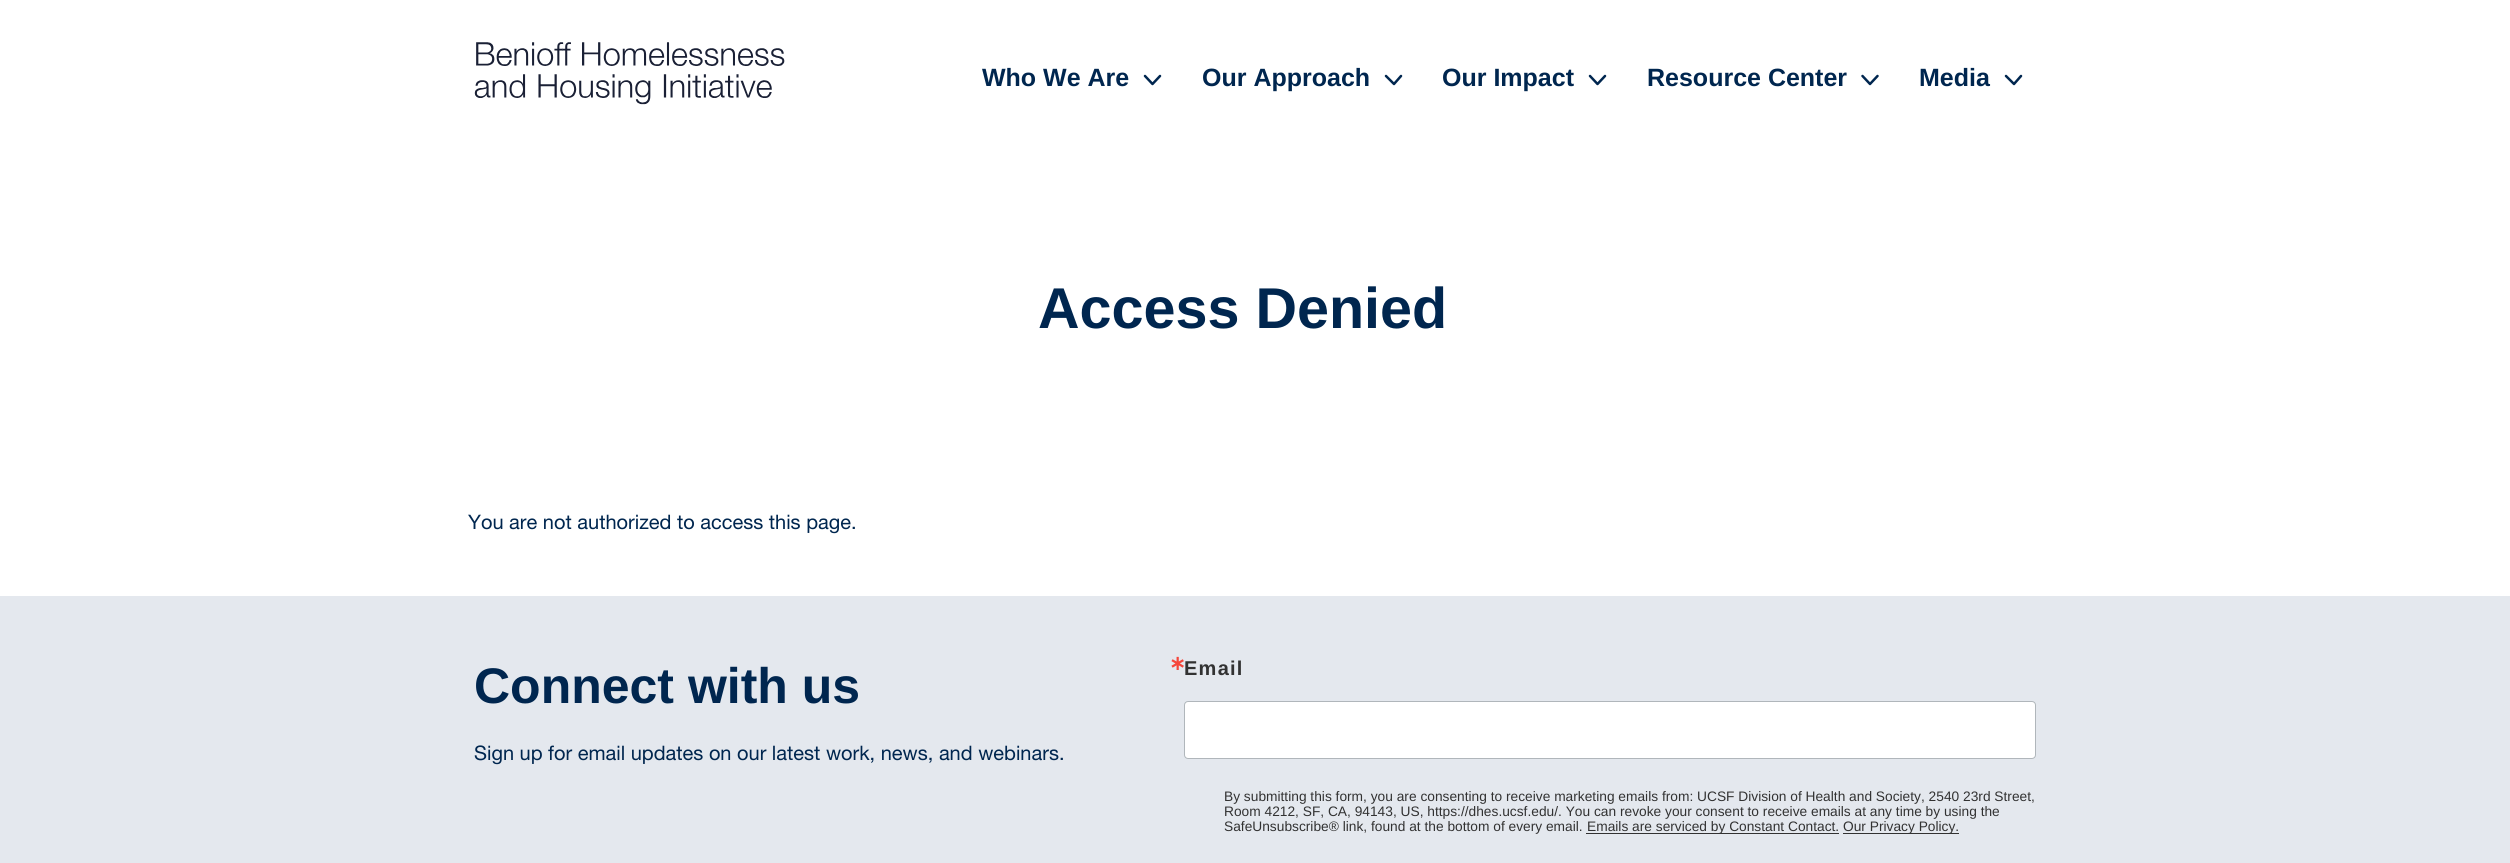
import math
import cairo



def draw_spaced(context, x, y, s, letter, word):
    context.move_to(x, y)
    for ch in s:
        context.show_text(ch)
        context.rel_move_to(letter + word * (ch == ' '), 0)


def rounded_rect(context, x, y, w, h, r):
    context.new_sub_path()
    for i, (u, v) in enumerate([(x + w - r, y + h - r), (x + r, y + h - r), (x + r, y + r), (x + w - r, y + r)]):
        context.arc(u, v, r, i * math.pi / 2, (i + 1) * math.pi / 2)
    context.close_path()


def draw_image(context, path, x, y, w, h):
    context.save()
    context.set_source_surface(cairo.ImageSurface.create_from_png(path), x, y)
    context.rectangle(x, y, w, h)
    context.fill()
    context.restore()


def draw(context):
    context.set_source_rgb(1, 1, 1)
    context.paint()
    draw_image(context, "images/1.png", 474, 42, 311, 63)
    context.new_path()
    context.move_to(1145, 76)
    context.line_to(1152.5, 84)
    context.line_to(1160, 76)
    context.set_source_rgb(0, 38 / 255, 79 / 255)
    context.set_line_width(2.5)
    context.set_line_cap(cairo.LineCap.ROUND)
    context.set_line_join(cairo.LineJoin.ROUND)
    context.stroke()
    context.new_path()
    context.move_to(1386, 76)
    context.line_to(1394, 84)
    context.line_to(1401, 76)
    context.stroke()
    context.new_path()
    context.move_to(1590, 76)
    context.line_to(1597.5, 84)
    context.line_to(1605, 76)
    context.stroke()
    context.new_path()
    context.move_to(1862.5, 76)
    context.line_to(1870, 84)
    context.line_to(1877.5, 76)
    context.stroke()
    context.new_path()
    context.move_to(2006, 76)
    context.line_to(2014, 84)
    context.line_to(2021, 76)
    context.stroke()
    context.set_source_rgb(228 / 255, 232 / 255, 238 / 255)
    context.rectangle(0, 596, 2510, 267)
    context.fill()
    context.set_source_rgb(1, 1, 1)
    rounded_rect(context, 1184.5, 701.5, 851, 57, 3.5)
    context.fill_preserve()
    context.set_source_rgb(176 / 255, 182 / 255, 187 / 255)
    context.set_line_width(1)
    context.set_line_cap(cairo.LineCap.BUTT)
    context.set_line_join(cairo.LineJoin.MITER)
    context.stroke()
    context.set_source_rgb(50 / 255, 50 / 255, 50 / 255)
    context.rectangle(1586, 833, 253, 1)
    context.fill()
    context.rectangle(1843, 833, 116, 1)
    context.fill()
    context.select_font_face("Liberation Sans", cairo.FontSlant.NORMAL, cairo.FontWeight.BOLD)
    context.set_font_size(25)
    context.set_source_rgb(0, 38 / 255, 79 / 255)
    context.move_to(982, 86)
    context.show_text("Who We Are")
    context.move_to(1202, 86)
    context.show_text("Our Approach")
    context.move_to(1442, 86)
    context.show_text("Our Impact")
    context.move_to(1647, 86)
    context.show_text("Resource Center")
    context.move_to(1919, 86)
    context.show_text("Media")
    context.set_font_size(57.5)
    context.move_to(1038, 328)
    context.show_text("Access Denied")
    context.select_font_face("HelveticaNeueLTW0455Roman")
    context.set_font_size(20)
    context.move_to(468, 529)
    context.show_text("You are not authorized to access this page.")
    context.select_font_face("Liberation Sans", cairo.FontSlant.NORMAL, cairo.FontWeight.BOLD)
    context.set_font_size(50)
    context.move_to(474, 703)
    context.show_text("Connect with us")
    context.select_font_face("HelveticaNeueLTW0455Roman")
    context.set_font_size(20)
    context.move_to(474, 760)
    context.show_text("Sign up for email updates on our latest work, news, and webinars.")
    context.select_font_face("DejaVu Sans", cairo.FontSlant.NORMAL, cairo.FontWeight.BOLD)
    context.set_source_rgb(245 / 255, 70 / 255, 59 / 255)
    draw_spaced(context, 1169, 670, "∗", 1.25, 0)
    context.select_font_face("Liberation Sans", cairo.FontSlant.NORMAL, cairo.FontWeight.BOLD)
    context.set_source_rgb(50 / 255, 50 / 255, 50 / 255)
    draw_spaced(context, 1184, 675, "Email", 1.25, 0)
    context.select_font_face("Liberation Sans")
    context.set_font_size(13.75)
    context.move_to(1224, 801)
    context.show_text("By submitting this form, you are consenting to receive marketing emails from: UCSF Division of Health and Society, 2540 23rd Street,")
    context.move_to(1224, 816)
    context.show_text("Room 4212, SF, CA, 94143, US, https://dhes.ucsf.edu/. You can revoke your consent to receive emails at any time by using the")
    context.move_to(1224, 831)
    context.show_text("SafeUnsubscribe® link, found at the bottom of every email.")
    context.move_to(1587, 831)
    context.show_text("Emails are serviced by Constant Contact.")
    context.move_to(1843, 831)
    context.show_text("Our Privacy Policy.")


surface = cairo.ImageSurface(cairo.Format.RGB24, 2510, 863)
context = cairo.Context(surface)
options = cairo.FontOptions()
options.set_hint_metrics(cairo.HintMetrics.OFF)
options.set_hint_style(cairo.HintStyle.NONE)
context.set_font_options(options)
context.set_miter_limit(4)
draw(context)
surface.write_to_png("out.png")
